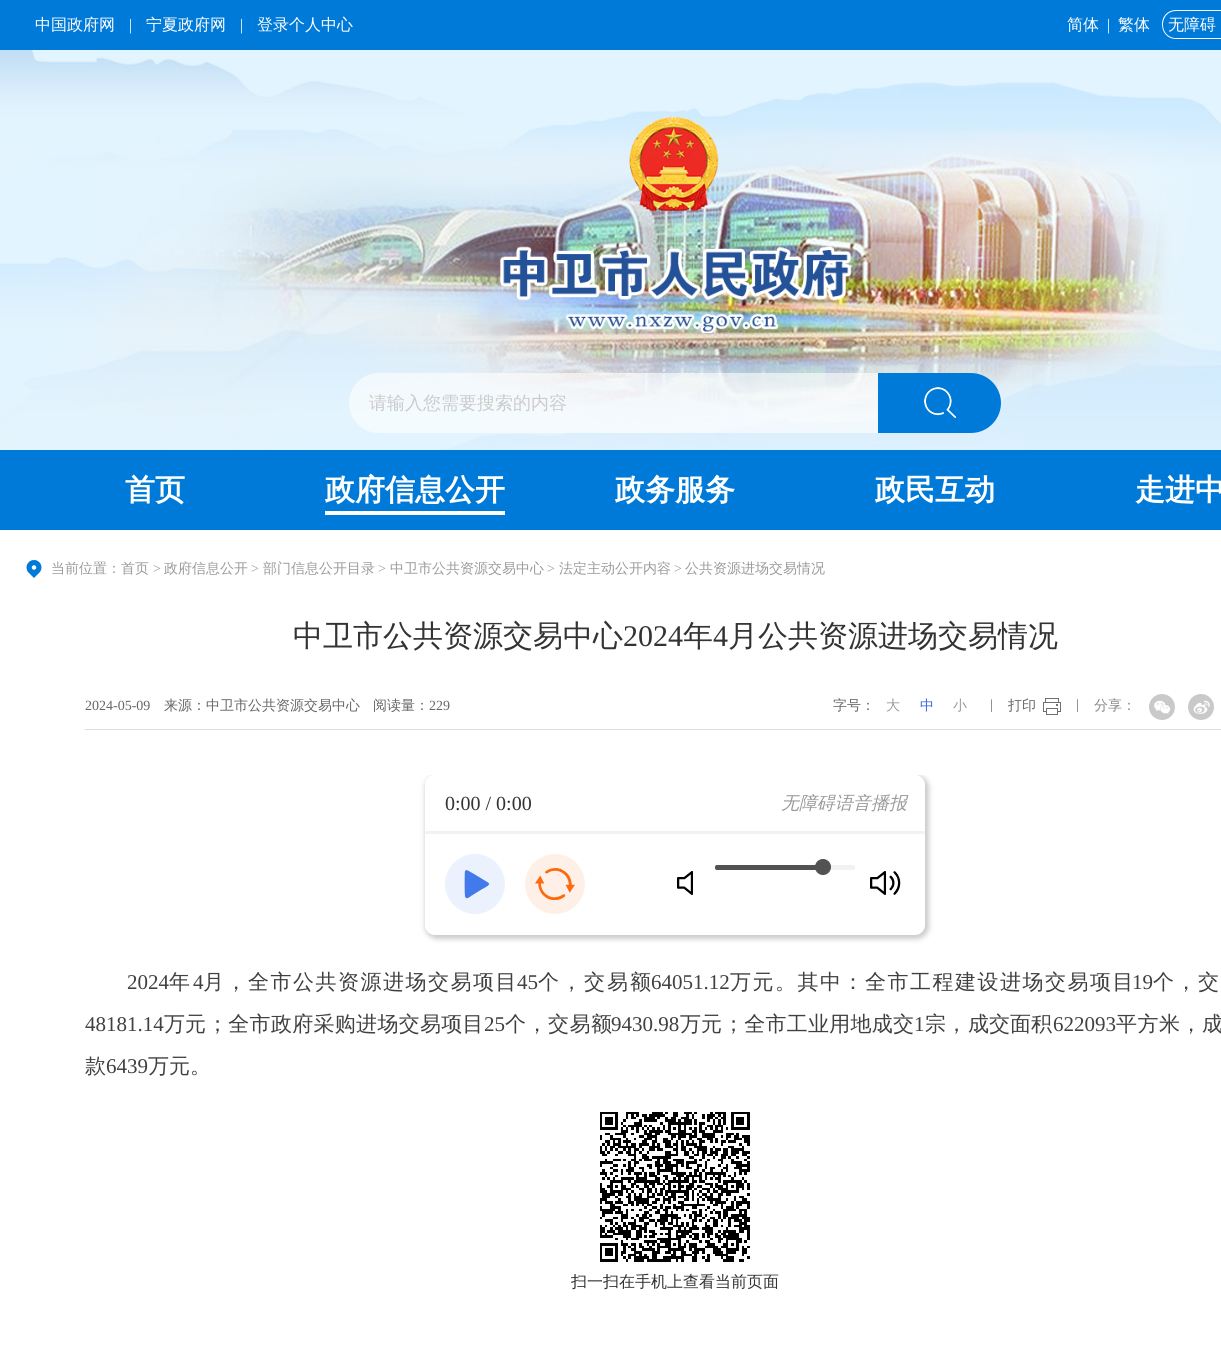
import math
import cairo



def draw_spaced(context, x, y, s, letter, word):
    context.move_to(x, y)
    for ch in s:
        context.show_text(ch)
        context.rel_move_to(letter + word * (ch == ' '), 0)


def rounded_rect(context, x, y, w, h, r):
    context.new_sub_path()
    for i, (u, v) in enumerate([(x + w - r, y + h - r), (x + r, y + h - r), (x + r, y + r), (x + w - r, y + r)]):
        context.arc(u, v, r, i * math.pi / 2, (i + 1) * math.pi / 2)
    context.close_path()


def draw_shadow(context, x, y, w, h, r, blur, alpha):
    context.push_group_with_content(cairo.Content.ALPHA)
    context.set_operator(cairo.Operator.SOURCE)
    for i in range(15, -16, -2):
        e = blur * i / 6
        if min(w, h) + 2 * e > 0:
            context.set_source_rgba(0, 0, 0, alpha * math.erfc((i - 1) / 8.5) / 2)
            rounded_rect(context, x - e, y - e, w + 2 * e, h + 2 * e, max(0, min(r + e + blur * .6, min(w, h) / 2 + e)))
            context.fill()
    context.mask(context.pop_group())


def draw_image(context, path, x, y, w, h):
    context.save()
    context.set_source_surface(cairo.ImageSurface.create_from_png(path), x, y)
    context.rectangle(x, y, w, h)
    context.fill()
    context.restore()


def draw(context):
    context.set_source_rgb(1, 1, 1)
    context.paint()
    draw_image(context, "images/1.png", 0, 50, 1221, 400)
    context.set_source_rgb(0, 122 / 255, 216 / 255)
    context.rectangle(0, 0, 1221, 50)
    context.fill()
    context.set_source_rgb(1, 1, 1)
    context.set_fill_rule(cairo.FillRule.EVEN_ODD)
    context.new_path()
    context.move_to(1176, 10)
    context.line_to(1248, 10)
    context.line_to(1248, 39)
    context.line_to(1176, 39)
    context.curve_to(1168, 39, 1162, 33, 1162, 24)
    context.curve_to(1162, 16, 1168, 10, 1176, 10)
    context.close_path()
    context.move_to(1176, 11)
    context.line_to(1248, 11)
    context.line_to(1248, 38)
    context.line_to(1174, 38)
    context.curve_to(1158, 35, 1160, 11, 1176, 11)
    context.close_path()
    context.fill()
    draw_image(context, "images/2.png", 500, 116, 352, 217)
    context.set_source_rgba(1, 1, 1, 0.6)
    rounded_rect(context, 349, 373, 652, 60, 30)
    context.fill()
    context.set_source_rgb(0, 122 / 255, 216 / 255)
    context.new_path()
    context.move_to(878, 373)
    context.line_to(971, 373)
    context.curve_to(987.5, 373, 1001, 386.5, 1001, 403)
    context.curve_to(1001, 419.5, 987.5, 433, 971, 433)
    context.line_to(878, 433)
    context.close_path()
    context.fill()
    draw_image(context, "images/3.png", 924, 387, 32, 31)
    context.rectangle(0, 450, 1221, 80)
    context.fill()
    context.set_source_rgb(1, 1, 1)
    context.rectangle(325, 511, 180, 4)
    context.fill()
    draw_image(context, "images/4.png", 26, 560, 16, 18)
    context.set_source_rgb(220 / 255, 220 / 255, 220 / 255)
    context.rectangle(85, 729, 1136, 1)
    context.fill()
    draw_image(context, "images/5.png", 1043, 698, 18, 17)
    context.set_source_rgb(201 / 255, 201 / 255, 201 / 255)
    context.arc(1162, 707, 13, 0, 2 * math.pi)
    context.fill()
    draw_image(context, "images/6.png", 1154, 700, 17, 14)
    context.arc(1201, 707, 13, 0, 2 * math.pi)
    context.fill()
    draw_image(context, "images/7.png", 1193, 700, 17, 14)
    context.save()
    context.set_fill_rule(cairo.FillRule.WINDING)
    context.rectangle(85, 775, 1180, 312)
    context.clip()
    context.set_fill_rule(cairo.FillRule.EVEN_ODD)
    context.new_path()
    context.move_to(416, 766)
    context.line_to(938, 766)
    context.line_to(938, 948)
    context.line_to(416, 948)
    context.close_path()
    context.move_to(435, 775)
    context.line_to(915, 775)
    context.curve_to(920.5, 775, 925, 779.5, 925, 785)
    context.line_to(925, 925)
    context.curve_to(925, 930.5, 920.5, 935, 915, 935)
    context.line_to(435, 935)
    context.curve_to(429.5, 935, 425, 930.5, 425, 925)
    context.line_to(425, 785)
    context.curve_to(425, 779.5, 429.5, 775, 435, 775)
    context.close_path()
    context.clip()
    context.set_source_rgb(204 / 255, 204 / 255, 204 / 255)
    draw_shadow(context, 425, 775, 504, 164, 12, 2.5, 1)
    context.restore()
    context.set_source_rgb(242 / 255, 242 / 255, 242 / 255)
    rounded_rect(context, 425, 831, 500, 3, 1.5)
    context.fill()
    context.set_source_rgb(236 / 255, 242 / 255, 253 / 255)
    context.arc(475, 884, 30, 0, 2 * math.pi)
    context.fill()
    context.set_source_rgb(67 / 255, 122 / 255, 235 / 255)
    context.new_path()
    context.move_to(488, 882.5)
    context.curve_to(485.5, 881, 468, 870, 466.5, 870)
    context.line_to(465, 871)
    context.curve_to(464.5, 872, 464.5, 894.5, 465, 896.5)
    context.line_to(466, 898)
    context.curve_to(467.5, 899, 470.5, 896.5, 471, 896)
    context.line_to(481.5, 889.5)
    context.curve_to(486, 887, 491.5, 884.5, 488, 882.5)
    context.close_path()
    context.fill()
    draw_image(context, "images/8.png", 525, 854, 60, 60)
    context.set_source_rgb(242 / 255, 242 / 255, 242 / 255)
    rounded_rect(context, 715, 865, 140, 5, 2)
    context.fill()
    context.set_source_rgb(82 / 255, 82 / 255, 82 / 255)
    rounded_rect(context, 715, 865, 105, 5, 2)
    context.fill()
    context.arc(823, 867, 7.5, 0, 2 * math.pi)
    context.fill_preserve()
    context.set_line_width(1)
    context.stroke()
    draw_image(context, "images/9.png", 677, 871, 16, 24)
    draw_image(context, "images/10.png", 870, 871, 31, 24)
    draw_image(context, "images/11.png", 600, 1112, 150, 150)
    context.select_font_face("WenQuanYi Zen Hei Medium")
    context.set_font_size(16)
    context.set_source_rgb(1, 1, 1)
    context.move_to(35, 30)
    context.show_text("中国政府网")
    context.select_font_face("Liberation Serif")
    context.move_to(129, 30)
    context.show_text("|")
    context.select_font_face("WenQuanYi Zen Hei Medium")
    context.move_to(146, 30)
    context.show_text("宁夏政府网")
    context.select_font_face("Liberation Serif")
    context.move_to(240, 30)
    context.show_text("|")
    context.select_font_face("WenQuanYi Zen Hei Medium")
    context.move_to(257, 30)
    context.show_text("登录个人中心")
    context.move_to(1067, 30)
    context.show_text("简体")
    context.select_font_face("Liberation Serif")
    context.move_to(1107, 30)
    context.show_text("|")
    context.select_font_face("WenQuanYi Zen Hei Medium")
    context.move_to(1118, 30)
    context.show_text("繁体")
    context.move_to(1168, 30)
    context.show_text("无障碍")
    context.set_font_size(18)
    context.set_source_rgb(203 / 255, 203 / 255, 203 / 255)
    context.move_to(369, 409)
    context.show_text("请输入您需要搜索的内容")
    context.select_font_face("WenQuanYi Zen Hei", cairo.FontSlant.NORMAL, cairo.FontWeight.BOLD)
    context.set_font_size(30)
    context.set_source_rgb(1, 1, 1)
    context.move_to(125, 500)
    context.show_text("首页")
    context.move_to(325, 500)
    context.show_text("政府信息公开")
    context.move_to(615, 500)
    context.show_text("政务服务")
    context.move_to(875, 500)
    context.show_text("政民互动")
    context.move_to(1135, 500)
    context.show_text("走进中")
    context.select_font_face("WenQuanYi Zen Hei Medium")
    context.set_font_size(14)
    context.set_source_rgb(154 / 255, 154 / 255, 154 / 255)
    context.move_to(51, 573)
    context.show_text("当前位置：首页")
    context.select_font_face("Liberation Serif")
    context.move_to(153, 573)
    context.show_text(">")
    context.select_font_face("WenQuanYi Zen Hei Medium")
    context.move_to(164, 573)
    context.show_text("政府信息公开")
    context.select_font_face("Liberation Serif")
    context.move_to(251, 573)
    context.show_text(">")
    context.select_font_face("WenQuanYi Zen Hei Medium")
    context.move_to(263, 573)
    context.show_text("部门信息公开目录")
    context.select_font_face("Liberation Serif")
    context.move_to(378, 573)
    context.show_text(">")
    context.select_font_face("WenQuanYi Zen Hei Medium")
    context.move_to(390, 573)
    context.show_text("中卫市公共资源交易中心")
    context.select_font_face("Liberation Serif")
    context.move_to(547, 573)
    context.show_text(">")
    context.select_font_face("WenQuanYi Zen Hei Medium")
    context.move_to(559, 573)
    context.show_text("法定主动公开内容")
    context.select_font_face("Liberation Serif")
    context.move_to(674, 573)
    context.show_text(">")
    context.select_font_face("WenQuanYi Zen Hei Medium")
    context.move_to(685, 573)
    context.show_text("公共资源进场交易情况")
    context.set_font_size(30)
    context.set_source_rgb(51 / 255, 51 / 255, 51 / 255)
    context.move_to(293, 646)
    context.show_text("中卫市公共资源交易中心")
    context.select_font_face("Liberation Serif")
    context.move_to(623, 646)
    context.show_text("2024")
    context.select_font_face("WenQuanYi Zen Hei Medium")
    context.move_to(683, 646)
    context.show_text("年")
    context.select_font_face("Liberation Serif")
    context.move_to(713, 646)
    context.show_text("4")
    context.select_font_face("WenQuanYi Zen Hei Medium")
    context.move_to(728, 646)
    context.show_text("月公共资源进场交易情况")
    context.select_font_face("Liberation Serif")
    context.set_font_size(14)
    context.set_source_rgb(102 / 255, 102 / 255, 102 / 255)
    context.move_to(85, 710)
    context.show_text("2024-05-09")
    context.select_font_face("WenQuanYi Zen Hei Medium")
    context.move_to(164, 710)
    context.show_text("来源：中卫市公共资源交易中心")
    context.move_to(373, 710)
    context.show_text("阅读量：")
    context.select_font_face("Liberation Serif")
    context.move_to(429, 710)
    context.show_text("229")
    context.select_font_face("WenQuanYi Zen Hei Medium")
    context.move_to(833, 710)
    context.show_text("字号：")
    context.set_source_rgb(154 / 255, 154 / 255, 154 / 255)
    context.move_to(886, 710)
    context.show_text("大")
    context.set_source_rgb(63 / 255, 101 / 255, 226 / 255)
    context.move_to(920, 710)
    context.show_text("中")
    context.set_source_rgb(154 / 255, 154 / 255, 154 / 255)
    context.move_to(953, 710)
    context.show_text("小")
    context.select_font_face("Liberation Serif")
    context.set_source_rgb(102 / 255, 102 / 255, 102 / 255)
    context.move_to(990, 709)
    context.show_text("|")
    context.select_font_face("WenQuanYi Zen Hei Medium")
    context.move_to(1008, 710)
    context.show_text("打印")
    context.select_font_face("Liberation Serif")
    context.move_to(1076, 709)
    context.show_text("|")
    context.select_font_face("WenQuanYi Zen Hei Medium")
    context.set_source_rgb(136 / 255, 136 / 255, 136 / 255)
    context.move_to(1094, 710)
    context.show_text("分享：")
    context.select_font_face("Liberation Serif")
    context.set_font_size(20)
    context.set_source_rgb(51 / 255, 51 / 255, 51 / 255)
    context.move_to(445, 810)
    context.show_text("0:00 / 0:00")
    context.select_font_face("WenQuanYi Zen Hei Medium", cairo.FontSlant.ITALIC)
    context.set_font_size(18)
    context.set_source_rgb(154 / 255, 154 / 255, 154 / 255)
    context.move_to(781, 809)
    context.show_text("无障碍语音播报")
    context.select_font_face("Liberation Serif")
    context.set_font_size(21)
    context.set_source_rgb(64 / 255, 64 / 255, 64 / 255)
    context.move_to(127, 989)
    context.show_text("2024")
    context.select_font_face("WenQuanYi Zen Hei Medium")
    context.move_to(169, 989)
    context.show_text("年")
    context.select_font_face("Liberation Serif")
    context.move_to(193, 989)
    context.show_text("4")
    context.select_font_face("WenQuanYi Zen Hei Medium")
    draw_spaced(context, 203, 989, "月，全市公共资源进场交易项目", 1.5, 0)
    context.select_font_face("Liberation Serif")
    context.move_to(517, 989)
    context.show_text("45")
    context.select_font_face("WenQuanYi Zen Hei Medium")
    draw_spaced(context, 538, 989, "个，交易额", 2, 0)
    context.select_font_face("Liberation Serif")
    context.move_to(651, 989)
    context.show_text("64051.12")
    context.select_font_face("WenQuanYi Zen Hei Medium")
    draw_spaced(context, 730, 989, "万元。其中：全市工程建设进场交易项目", 1.5, 0)
    context.select_font_face("Liberation Serif")
    context.move_to(1132, 989)
    context.show_text("19")
    context.select_font_face("WenQuanYi Zen Hei Medium")
    draw_spaced(context, 1153, 989, "个，交", 1.5, 0)
    context.select_font_face("Liberation Serif")
    context.move_to(85, 1031)
    context.show_text("48181.14")
    context.select_font_face("WenQuanYi Zen Hei Medium")
    context.move_to(164, 1031)
    context.show_text("万元")
    draw_spaced(context, 207, 1031, "；全市政府采购进场交易项目", 0.3, 0)
    context.select_font_face("Liberation Serif")
    context.move_to(484, 1031)
    context.show_text("25")
    context.select_font_face("WenQuanYi Zen Hei Medium")
    draw_spaced(context, 505, 1031, "个，交易额", 0.5, 0)
    context.select_font_face("Liberation Serif")
    context.move_to(611, 1031)
    context.show_text("9430.98")
    context.select_font_face("WenQuanYi Zen Hei Medium")
    context.move_to(680, 1031)
    context.show_text("万元")
    draw_spaced(context, 723, 1031, "；全市工业用地成交", 0.25, 0)
    context.select_font_face("Liberation Serif")
    context.move_to(914, 1031)
    context.show_text("1")
    context.select_font_face("WenQuanYi Zen Hei Medium")
    context.move_to(925, 1031)
    context.show_text("宗")
    context.move_to(946, 1031)
    context.show_text("，")
    context.move_to(968, 1031)
    context.show_text("成交")
    context.move_to(1010, 1031)
    context.show_text("面积")
    context.select_font_face("Liberation Serif")
    context.move_to(1053, 1031)
    context.show_text("622093")
    context.select_font_face("WenQuanYi Zen Hei Medium")
    draw_spaced(context, 1116, 1031, "平方米，成", 0.5, 0)
    context.move_to(85, 1073)
    context.show_text("款")
    context.select_font_face("Liberation Serif")
    context.move_to(106, 1073)
    context.show_text("6439")
    context.select_font_face("WenQuanYi Zen Hei Medium")
    context.move_to(148, 1073)
    context.show_text("万元。")
    context.set_font_size(16)
    context.set_source_rgb(51 / 255, 51 / 255, 51 / 255)
    context.move_to(571, 1287)
    context.show_text("扫一扫在手机上查看当前页面")


surface = cairo.ImageSurface(cairo.Format.RGB24, 1221, 1369)
context = cairo.Context(surface)
options = cairo.FontOptions()
options.set_hint_metrics(cairo.HintMetrics.OFF)
options.set_hint_style(cairo.HintStyle.NONE)
context.set_font_options(options)
context.set_miter_limit(4)
draw(context)
surface.write_to_png("out.png")
